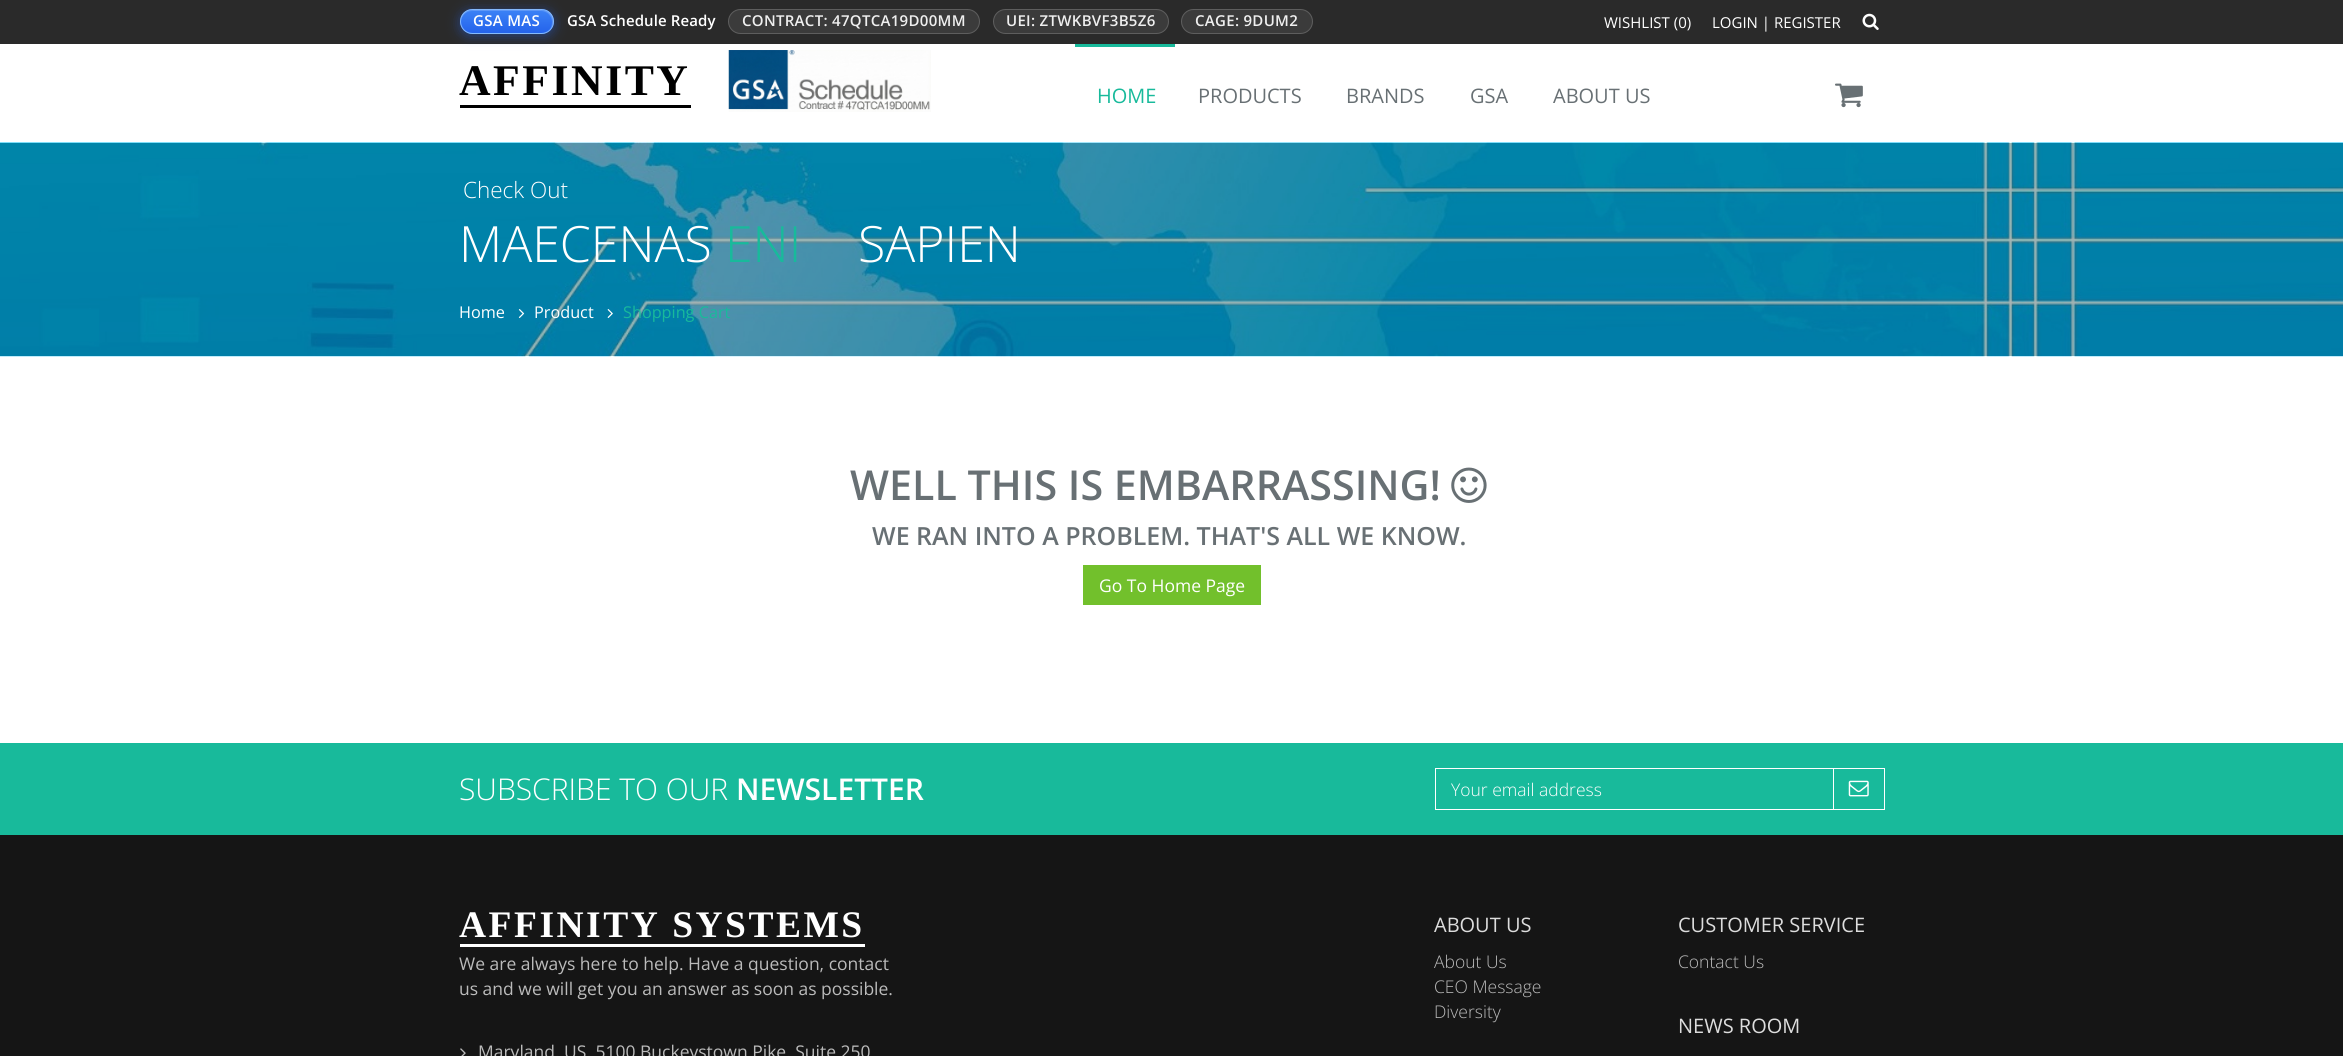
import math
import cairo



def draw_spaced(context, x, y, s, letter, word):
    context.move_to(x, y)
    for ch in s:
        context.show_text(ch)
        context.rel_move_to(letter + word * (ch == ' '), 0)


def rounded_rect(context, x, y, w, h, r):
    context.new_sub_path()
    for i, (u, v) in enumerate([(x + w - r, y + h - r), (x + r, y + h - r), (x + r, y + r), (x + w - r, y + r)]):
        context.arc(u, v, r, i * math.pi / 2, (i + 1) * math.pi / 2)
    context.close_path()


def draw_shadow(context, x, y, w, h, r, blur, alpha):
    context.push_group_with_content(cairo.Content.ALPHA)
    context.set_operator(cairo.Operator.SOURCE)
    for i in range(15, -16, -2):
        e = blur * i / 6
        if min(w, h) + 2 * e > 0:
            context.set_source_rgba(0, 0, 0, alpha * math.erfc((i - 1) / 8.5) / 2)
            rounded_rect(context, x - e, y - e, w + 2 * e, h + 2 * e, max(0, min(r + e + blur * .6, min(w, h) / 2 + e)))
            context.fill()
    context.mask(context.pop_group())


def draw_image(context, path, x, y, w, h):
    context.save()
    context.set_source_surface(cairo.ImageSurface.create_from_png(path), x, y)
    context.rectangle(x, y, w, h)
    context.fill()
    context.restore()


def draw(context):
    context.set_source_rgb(1, 1, 1)
    context.paint()
    context.set_source_rgb(42 / 255, 42 / 255, 42 / 255)
    context.rectangle(0, 0, 2343, 44)
    context.fill()
    context.set_source_rgb(37 / 255, 99 / 255, 235 / 255)
    draw_shadow(context, 460, 11, 94, 25, 12.5, 6, 0.45)
    context.save()
    rounded_rect(context, 460, 9, 94, 25, 12.5)
    context.clip()
    gradient = cairo.LinearGradient(507, -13, 507, 10)
    gradient.add_color_stop_rgba(0, 59 / 255, 130 / 255, 246 / 255, 1)
    gradient.add_color_stop_rgba(1, 37 / 255, 99 / 255, 235 / 255, 1)
    context.set_source(gradient)
    context.rectangle(460, 9, 94, 1)
    context.fill()
    gradient = cairo.LinearGradient(507, 10, 507, 33)
    gradient.add_color_stop_rgba(0, 59 / 255, 130 / 255, 246 / 255, 1)
    gradient.add_color_stop_rgba(1, 37 / 255, 99 / 255, 235 / 255, 1)
    context.set_source(gradient)
    context.rectangle(460, 10, 94, 23)
    context.fill()
    gradient = cairo.LinearGradient(507, 32, 507, 55)
    gradient.add_color_stop_rgba(0, 59 / 255, 130 / 255, 246 / 255, 1)
    gradient.add_color_stop_rgba(1, 37 / 255, 99 / 255, 235 / 255, 1)
    context.set_source(gradient)
    context.rectangle(460, 33, 94, 1)
    context.fill()
    context.restore()
    context.set_source_rgba(1, 1, 1, 0.18)
    context.new_path()
    context.move_to(472, 11)
    context.line_to(541, 11)
    context.curve_to(547, 11, 552, 16, 552, 22)
    context.curve_to(552, 25, 551, 28, 549, 30)
    context.curve_to(552, 27, 554, 23, 553, 19)
    context.curve_to(551, 8, 538, 10, 530, 10)
    context.line_to(484, 10)
    context.curve_to(475, 10, 461, 8, 461, 22)
    context.curve_to(461, 16, 466, 11, 472, 11)
    context.close_path()
    context.fill()
    rounded_rect(context, 460.5, 9.5, 93, 24, 12)
    context.set_source_rgba(147 / 255, 197 / 255, 253 / 255, 0.85)
    context.set_line_width(1)
    context.stroke()
    context.set_source_rgba(1, 1, 1, 0.08)
    rounded_rect(context, 728, 9, 252, 25, 12.5)
    context.fill()
    rounded_rect(context, 728.5, 9.5, 251, 24, 12)
    context.set_source_rgba(1, 1, 1, 0.18)
    context.stroke()
    context.set_source_rgba(1, 1, 1, 0.08)
    rounded_rect(context, 993, 9, 176, 25, 12.5)
    context.fill()
    rounded_rect(context, 993.5, 9.5, 175, 24, 12)
    context.set_source_rgba(1, 1, 1, 0.18)
    context.stroke()
    context.set_source_rgba(1, 1, 1, 0.08)
    rounded_rect(context, 1181, 9, 132, 25, 12.5)
    context.fill()
    rounded_rect(context, 1181.5, 9.5, 131, 24, 12)
    context.set_source_rgba(1, 1, 1, 0.18)
    context.stroke()
    draw_image(context, "images/1.png", 1862, 13, 17, 17)
    context.set_source_rgb(0, 0, 0)
    context.rectangle(460, 105, 231, 3)
    context.fill()
    draw_image(context, "images/2.png", 728, 50, 203, 62)
    context.set_source_rgb(24 / 255, 186 / 255, 155 / 255)
    context.rectangle(1075, 44, 100, 3)
    context.fill()
    draw_image(context, "images/3.png", 1835, 83, 28, 25)
    draw_image(context, "images/4.png", 0, 142, 2343, 215)
    draw_image(context, "images/5.png", 518, 309, 7, 9)
    draw_image(context, "images/6.png", 607, 309, 6, 9)
    draw_image(context, "images/7.png", 1451, 467, 36, 36)
    context.set_source_rgb(114 / 255, 192 / 255, 44 / 255)
    context.rectangle(1083, 565, 178, 40)
    context.fill()
    context.set_source_rgb(24 / 255, 186 / 255, 155 / 255)
    context.rectangle(0, 743, 2343, 92)
    context.fill()
    context.rectangle(1833.5, 768.5, 51, 41)
    context.set_source_rgb(1, 1, 1)
    context.stroke()
    context.rectangle(1435, 768, 399, 1)
    context.fill()
    context.rectangle(1435, 809, 399, 1)
    context.fill()
    context.rectangle(1435, 768, 1, 42)
    context.fill()
    draw_image(context, "images/8.png", 1848, 780, 21, 17)
    context.set_source_rgb(21 / 255, 21 / 255, 21 / 255)
    context.rectangle(0, 835, 2343, 221)
    context.fill()
    context.set_source_rgb(1, 1, 1)
    context.rectangle(460, 944, 405, 3)
    context.fill()
    draw_image(context, "images/9.png", 460, 1048, 6, 8)
    context.select_font_face("Open Sans SemiBold")
    context.set_font_size(15)
    draw_spaced(context, 473, 26, "GSA MAS", 0.3, 0)
    draw_spaced(context, 567, 26, "GSA Schedule Ready", 0.1, 0)
    context.set_source_rgb(239 / 255, 239 / 255, 239 / 255)
    draw_spaced(context, 742, 26, "CONTRACT: 47QTCA19D00MM", 0.3, 0)
    draw_spaced(context, 1006, 26, "UEI: ZTWKBVF3B5Z6", 0.3, 0)
    draw_spaced(context, 1195, 26, "CAGE: 9DUM2", 0.3, 0)
    context.select_font_face("Open Sans")
    context.set_source_rgb(1, 1, 1)
    context.move_to(1604, 28)
    context.show_text("WISHLIST (0)")
    context.move_to(1712, 28)
    context.show_text("LOGIN | REGISTER")
    context.select_font_face("Liberation Serif", cairo.FontSlant.NORMAL, cairo.FontWeight.BOLD)
    context.set_font_size(43.75)
    context.set_source_rgb(0, 0, 0)
    draw_spaced(context, 459, 95, "AFFINITY", 2.5, 0)
    context.select_font_face("Open Sans")
    context.set_font_size(20)
    context.set_source_rgb(24 / 255, 186 / 255, 155 / 255)
    context.move_to(1097, 103)
    context.show_text("HOME")
    context.set_source_rgb(104 / 255, 112 / 255, 116 / 255)
    context.move_to(1198, 103)
    context.show_text("PRODUCTS")
    context.move_to(1346, 103)
    context.show_text("BRANDS")
    context.move_to(1470, 103)
    context.show_text("GSA")
    context.move_to(1553, 103)
    context.show_text("ABOUT US")
    context.select_font_face("Open Sans Light")
    context.set_font_size(22.5)
    context.set_source_rgb(1, 1, 1)
    context.move_to(463, 198)
    context.show_text("Check Out")
    context.set_font_size(50)
    context.move_to(459, 262)
    context.show_text("MAECENAS")
    context.set_source_rgb(24 / 255, 186 / 255, 155 / 255)
    context.move_to(725, 262)
    context.show_text("ENI")
    context.set_source_rgb(1, 1, 1)
    context.move_to(858, 262)
    context.show_text("SAPIEN")
    context.select_font_face("Open Sans")
    context.set_font_size(16.25)
    context.move_to(459, 318)
    context.show_text("Home")
    context.move_to(534, 318)
    context.show_text("Product")
    context.set_source_rgb(24 / 255, 186 / 255, 155 / 255)
    context.move_to(623, 318)
    context.show_text("Shopping Cart")
    context.select_font_face("Open Sans SemiBold")
    context.set_font_size(41.25)
    context.set_source_rgb(104 / 255, 112 / 255, 116 / 255)
    context.move_to(850, 500)
    context.show_text("WELL THIS IS EMBARRASSING!")
    context.set_font_size(25)
    context.move_to(872, 545)
    context.show_text("WE RAN INTO A PROBLEM. THAT'S ALL WE KNOW.")
    context.select_font_face("Open Sans")
    context.set_font_size(17.5)
    context.set_source_rgb(1, 1, 1)
    context.move_to(1099, 592)
    context.show_text("Go To Home Page")
    context.select_font_face("Open Sans Light")
    context.set_font_size(30)
    context.move_to(459, 800)
    context.show_text("SUBSCRIBE TO OUR")
    context.select_font_face("Open Sans SemiBold")
    context.move_to(736, 800)
    context.show_text("NEWSLETTER")
    context.select_font_face("Open Sans Light")
    context.set_font_size(17.5)
    context.move_to(1451, 796)
    context.show_text("Your email address")
    context.select_font_face("Liberation Serif", cairo.FontSlant.NORMAL, cairo.FontWeight.BOLD)
    context.set_font_size(37.5)
    draw_spaced(context, 459, 937, "AFFINITY SYSTEMS", 2.5, 0)
    context.select_font_face("Open Sans")
    context.set_font_size(17.5)
    context.set_source_rgb(187 / 255, 187 / 255, 187 / 255)
    context.move_to(459, 970)
    context.show_text("We are always here to help. Have a question, contact")
    context.move_to(459, 995)
    context.show_text("us and we will get you an answer as soon as possible.")
    context.move_to(478, 1058)
    context.show_text("Maryland, US, 5100 Buckeystown Pike, Suite 250")
    context.set_font_size(20)
    context.set_source_rgb(221 / 255, 221 / 255, 221 / 255)
    context.move_to(1434, 932)
    context.show_text("ABOUT US")
    context.select_font_face("Open Sans Light")
    context.set_font_size(17.5)
    context.set_source_rgb(187 / 255, 187 / 255, 187 / 255)
    context.move_to(1434, 968)
    context.show_text("About Us")
    context.move_to(1434, 993)
    context.show_text("CEO Message")
    context.move_to(1434, 1018)
    context.show_text("Diversity")
    context.select_font_face("Open Sans")
    context.set_font_size(20)
    context.set_source_rgb(221 / 255, 221 / 255, 221 / 255)
    context.move_to(1678, 932)
    context.show_text("CUSTOMER SERVICE")
    context.select_font_face("Open Sans Light")
    context.set_font_size(17.5)
    context.set_source_rgb(187 / 255, 187 / 255, 187 / 255)
    context.move_to(1678, 968)
    context.show_text("Contact Us")
    context.select_font_face("Open Sans")
    context.set_font_size(20)
    context.set_source_rgb(221 / 255, 221 / 255, 221 / 255)
    context.move_to(1678, 1033)
    context.show_text("NEWS ROOM")


surface = cairo.ImageSurface(cairo.Format.RGB24, 2343, 1056)
context = cairo.Context(surface)
options = cairo.FontOptions()
options.set_hint_metrics(cairo.HintMetrics.OFF)
options.set_hint_style(cairo.HintStyle.NONE)
context.set_font_options(options)
context.set_miter_limit(4)
draw(context)
surface.write_to_png("out.png")
